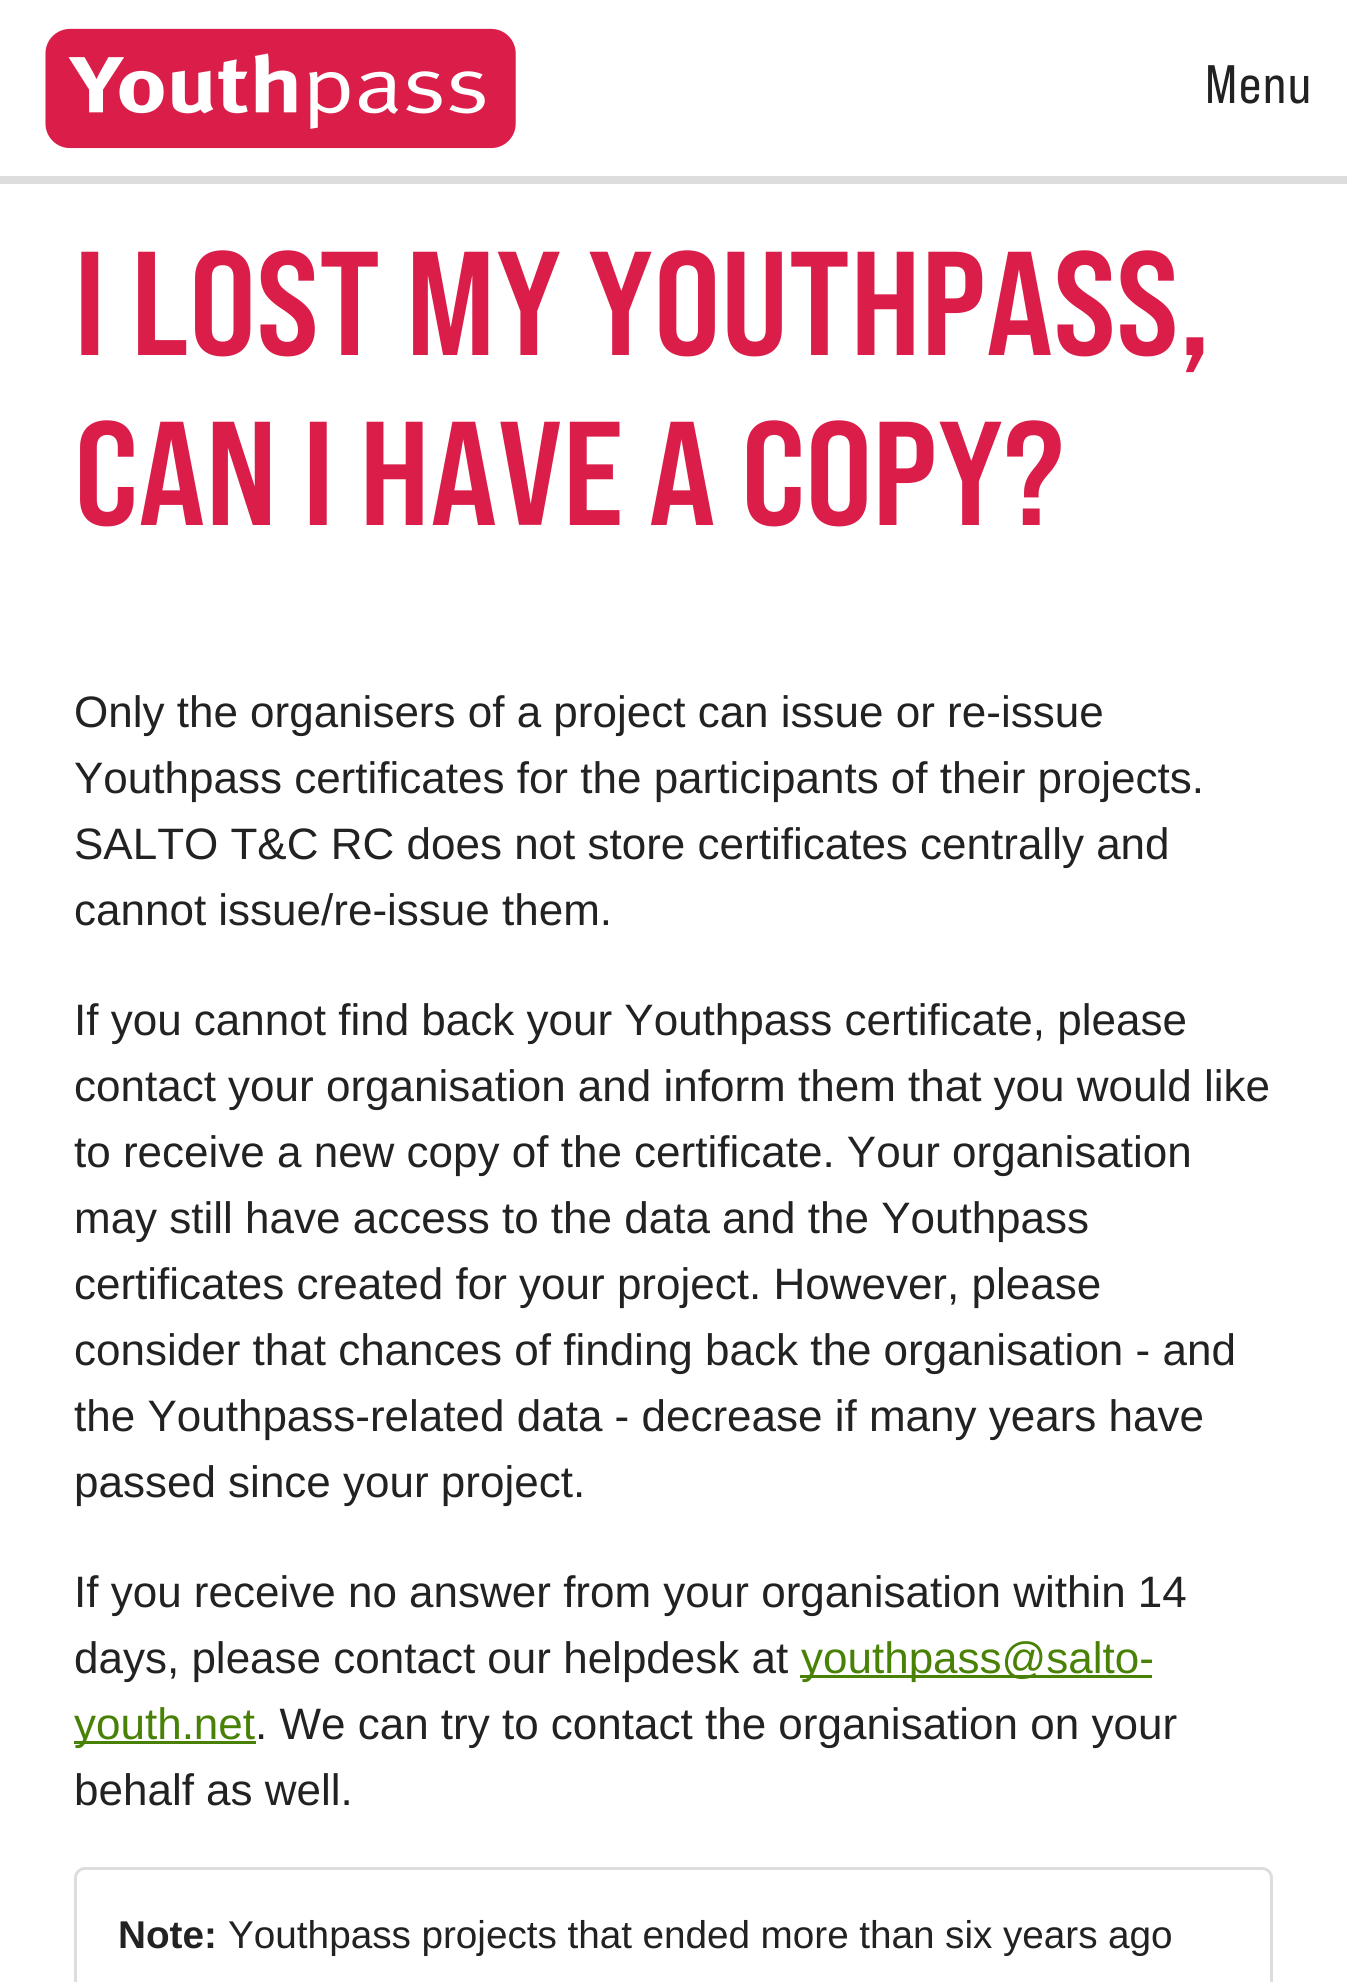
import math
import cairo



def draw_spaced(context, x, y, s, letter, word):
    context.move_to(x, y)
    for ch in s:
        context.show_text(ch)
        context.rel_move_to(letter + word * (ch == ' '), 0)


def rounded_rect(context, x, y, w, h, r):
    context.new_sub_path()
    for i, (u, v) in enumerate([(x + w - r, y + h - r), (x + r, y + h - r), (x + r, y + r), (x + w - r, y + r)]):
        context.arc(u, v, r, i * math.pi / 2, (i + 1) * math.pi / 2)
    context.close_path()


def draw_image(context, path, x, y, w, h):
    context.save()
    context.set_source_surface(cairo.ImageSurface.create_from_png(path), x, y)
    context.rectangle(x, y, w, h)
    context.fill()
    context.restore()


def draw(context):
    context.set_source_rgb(1, 1, 1)
    context.paint()
    context.set_source_rgb(221 / 255, 221 / 255, 221 / 255)
    context.rectangle(0, 176, 1347, 8)
    context.fill()
    draw_image(context, "images/1.png", 45, 28, 471, 121)
    context.set_source_rgb(73 / 255, 129 / 255, 6 / 255)
    context.rectangle(800, 1675, 352, 3)
    context.fill()
    context.rectangle(74, 1741, 182, 3)
    context.fill()
    rounded_rect(context, 75.5, 1868.5, 1196, 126, 9.5)
    context.set_source_rgb(221 / 255, 221 / 255, 221 / 255)
    context.set_line_width(3)
    context.stroke()
    context.select_font_face("Bebas Neue")
    context.set_font_size(54)
    context.set_source_rgb(34 / 255, 34 / 255, 34 / 255)
    draw_spaced(context, 1205, 103, "Menu", 1.5, 0)
    context.select_font_face("Bebas Neue", cairo.FontSlant.NORMAL, cairo.FontWeight.BOLD)
    context.set_font_size(147.5)
    context.set_source_rgb(218 / 255, 30 / 255, 73 / 255)
    context.move_to(74, 355)
    context.show_text("I LOST MY YOUTHPASS,")
    context.move_to(74, 525)
    context.show_text("CAN I HAVE A COPY?")
    context.select_font_face("Liberation Sans")
    context.set_font_size(44)
    context.set_source_rgb(34 / 255, 34 / 255, 34 / 255)
    context.move_to(74, 727)
    context.show_text("Only the organisers of a project can issue or re-issue")
    context.move_to(74, 793)
    context.show_text("Youthpass certificates for the participants of their projects.")
    context.move_to(74, 859)
    context.show_text("SALTO T&C RC does not store certificates centrally and")
    context.move_to(74, 925)
    context.show_text("cannot issue/re-issue them.")
    context.move_to(74, 1035)
    context.show_text("If you cannot find back your Youthpass certificate, please")
    context.move_to(74, 1101)
    context.show_text("contact your organisation and inform them that you would like")
    context.move_to(74, 1167)
    context.show_text("to receive a new copy of the certificate. Your organisation")
    context.move_to(74, 1233)
    context.show_text("may still have access to the data and the Youthpass")
    context.move_to(74, 1299)
    context.show_text("certificates created for your project. However, please")
    context.move_to(74, 1365)
    context.show_text("consider that chances of finding back the organisation - and")
    context.move_to(74, 1431)
    context.show_text("the Youthpass-related data - decrease if many years have")
    context.move_to(74, 1497)
    context.show_text("passed since your project.")
    context.move_to(74, 1607)
    context.show_text("If you receive no answer from your organisation within 14")
    context.move_to(74, 1673)
    context.show_text("days, please contact our helpdesk at")
    context.set_source_rgb(73 / 255, 129 / 255, 6 / 255)
    context.move_to(801, 1673)
    context.show_text("youthpass@salto-")
    context.move_to(74, 1739)
    context.show_text("youth.net")
    context.set_source_rgb(34 / 255, 34 / 255, 34 / 255)
    context.move_to(255, 1739)
    context.show_text(". We can try to contact the organisation on your")
    context.move_to(74, 1805)
    context.show_text("behalf as well.")
    context.select_font_face("Liberation Sans", cairo.FontSlant.NORMAL, cairo.FontWeight.BOLD)
    context.set_font_size(38.7)
    context.move_to(118, 1948)
    context.show_text("Note:")
    context.select_font_face("Liberation Sans")
    draw_spaced(context, 228, 1948, "Youthpass projects that ended more than six years ago", 0, -0.25)


surface = cairo.ImageSurface(cairo.Format.RGB24, 1347, 1982)
context = cairo.Context(surface)
options = cairo.FontOptions()
options.set_hint_metrics(cairo.HintMetrics.OFF)
options.set_hint_style(cairo.HintStyle.NONE)
context.set_font_options(options)
context.set_miter_limit(4)
draw(context)
surface.write_to_png("out.png")
